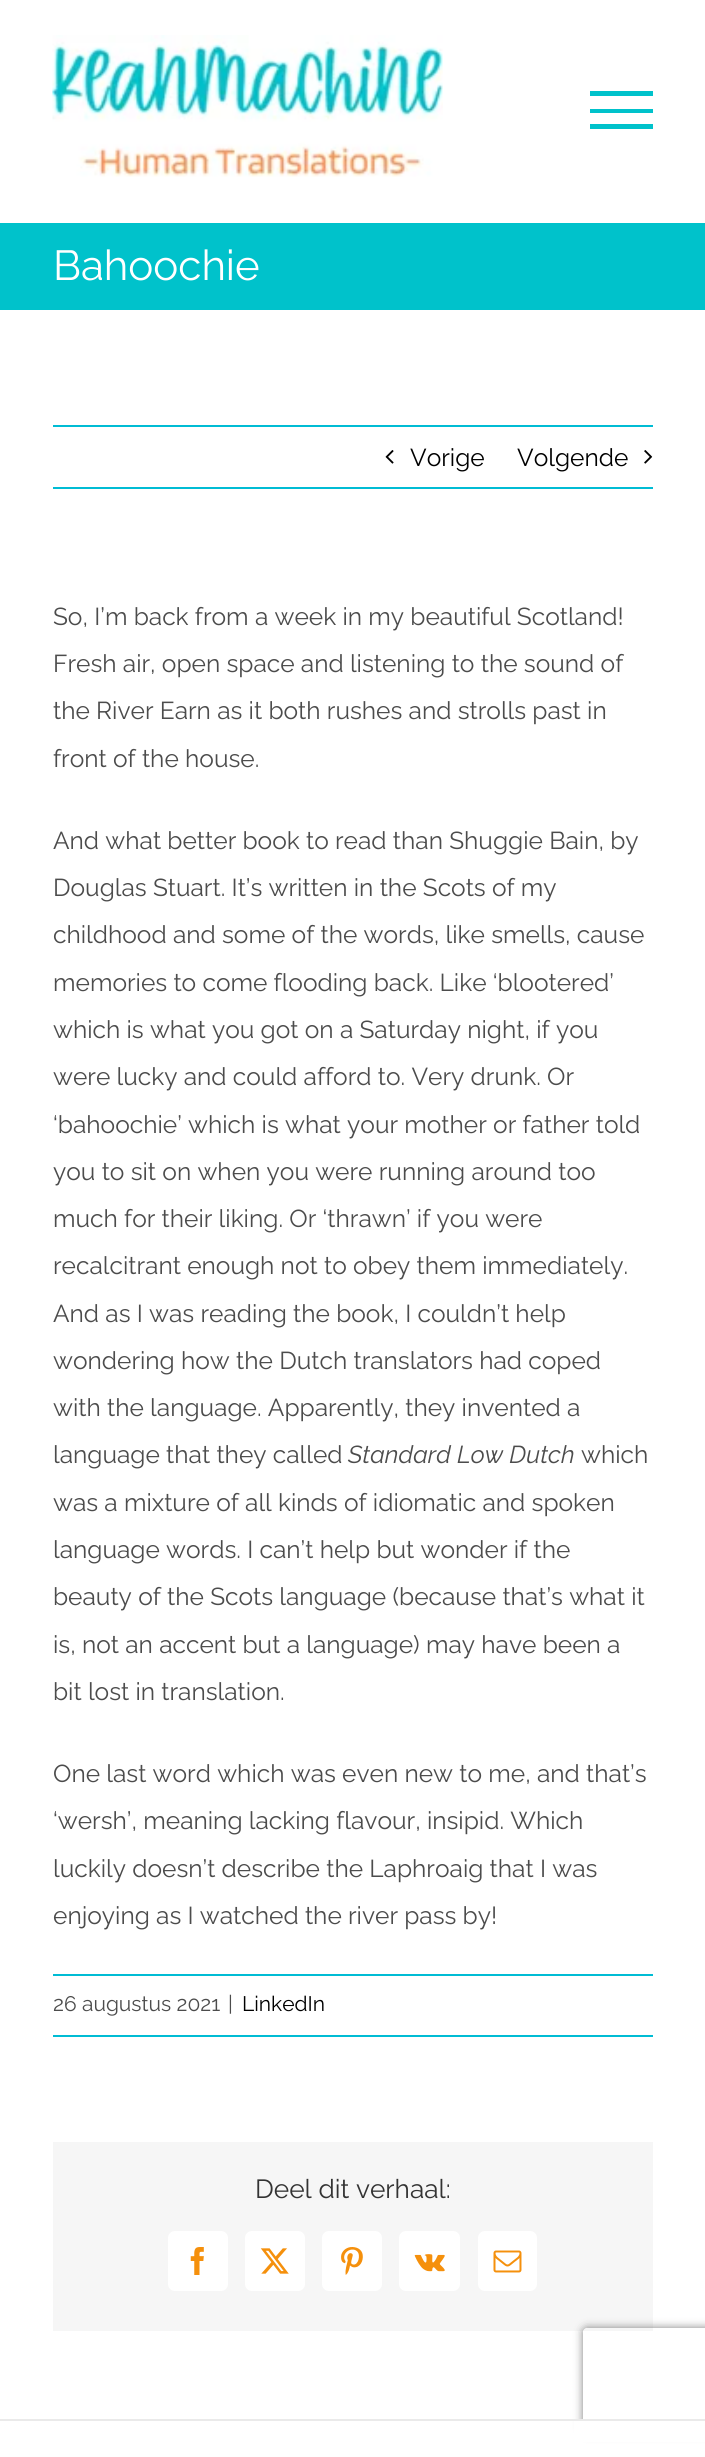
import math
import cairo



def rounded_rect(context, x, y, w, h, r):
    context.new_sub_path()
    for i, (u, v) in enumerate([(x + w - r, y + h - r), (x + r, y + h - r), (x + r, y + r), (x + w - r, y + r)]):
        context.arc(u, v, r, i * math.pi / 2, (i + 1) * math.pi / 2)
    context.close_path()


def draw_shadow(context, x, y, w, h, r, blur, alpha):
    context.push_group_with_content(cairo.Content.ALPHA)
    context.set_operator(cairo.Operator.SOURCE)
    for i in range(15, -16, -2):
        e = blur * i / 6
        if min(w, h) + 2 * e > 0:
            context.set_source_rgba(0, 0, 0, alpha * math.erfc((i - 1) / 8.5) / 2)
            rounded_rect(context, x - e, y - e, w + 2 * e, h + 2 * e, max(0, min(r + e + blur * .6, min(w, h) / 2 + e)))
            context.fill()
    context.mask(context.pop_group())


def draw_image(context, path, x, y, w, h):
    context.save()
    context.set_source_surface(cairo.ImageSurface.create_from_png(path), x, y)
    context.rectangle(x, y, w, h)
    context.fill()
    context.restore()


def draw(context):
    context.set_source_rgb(1, 1, 1)
    context.paint()
    draw_image(context, "images/1.png", 52, 35, 391, 142)
    context.set_source_rgb(0, 194 / 255, 203 / 255)
    context.rectangle(590, 91, 63, 5)
    context.fill()
    context.rectangle(590, 109, 63, 4)
    context.fill()
    context.rectangle(590, 124, 63, 5)
    context.fill()
    context.rectangle(0, 223, 705, 87)
    context.fill()
    context.set_source_rgb(0, 188 / 255, 212 / 255)
    context.rectangle(53, 425, 600, 2)
    context.fill()
    context.rectangle(53, 487, 600, 2)
    context.fill()
    draw_image(context, "images/2.png", 385, 450, 9, 14)
    draw_image(context, "images/3.png", 644, 450, 9, 14)
    context.rectangle(53, 1974, 600, 2)
    context.fill()
    context.rectangle(53, 2035, 600, 2)
    context.fill()
    context.set_source_rgb(246 / 255, 246 / 255, 246 / 255)
    context.rectangle(53, 2142, 600, 189)
    context.fill()
    context.set_source_rgb(1, 1, 1)
    rounded_rect(context, 168, 2231, 60, 60, 7)
    context.fill()
    draw_image(context, "images/4.png", 190, 2247, 14, 28)
    rounded_rect(context, 245, 2231, 60, 60, 7)
    context.fill()
    draw_image(context, "images/5.png", 260, 2248, 29, 26)
    rounded_rect(context, 322, 2231, 60, 60, 7)
    context.fill()
    draw_image(context, "images/6.png", 341, 2247, 22, 28)
    rounded_rect(context, 399, 2231, 61, 60, 7)
    context.fill()
    draw_image(context, "images/7.png", 414, 2254, 31, 18)
    rounded_rect(context, 478, 2231, 59, 60, 7)
    context.fill()
    draw_image(context, "images/8.png", 493, 2250, 29, 23)
    context.save()
    context.set_fill_rule(cairo.FillRule.EVEN_ODD)
    context.new_path()
    context.move_to(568, 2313)
    context.line_to(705, 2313)
    context.line_to(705, 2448)
    context.line_to(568, 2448)
    context.close_path()
    context.move_to(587, 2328)
    context.line_to(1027, 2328)
    context.curve_to(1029, 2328, 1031, 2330, 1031, 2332)
    context.line_to(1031, 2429)
    context.curve_to(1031, 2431, 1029, 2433, 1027, 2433)
    context.line_to(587, 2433)
    context.curve_to(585, 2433, 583, 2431, 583, 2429)
    context.line_to(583, 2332)
    context.curve_to(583, 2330, 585, 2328, 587, 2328)
    context.close_path()
    context.clip()
    context.set_source_rgb(128 / 255, 128 / 255, 128 / 255)
    draw_shadow(context, 583, 2328, 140, 105, 4, 4.5, 1)
    context.restore()
    context.rectangle(574, 2421, 131, 21)
    context.fill()
    context.set_source_rgb(234 / 255, 234 / 255, 234 / 255)
    context.rectangle(0, 2419, 705, 2)
    context.fill()
    context.select_font_face("Raleway")
    context.set_font_size(42)
    context.set_source_rgb(1, 1, 1)
    context.move_to(53, 280)
    context.show_text("Bahoochie")
    context.set_font_size(24.5)
    context.set_source_rgb(0, 0, 0)
    context.move_to(410, 466)
    context.show_text("Vorige")
    context.move_to(517, 466)
    context.show_text("Volgende")
    context.set_source_rgb(76 / 255, 76 / 255, 76 / 255)
    context.move_to(53, 625)
    context.show_text("So, I’m back from a week in my beautiful Scotland!")
    context.move_to(53, 672)
    context.show_text("Fresh air, open space and listening to the sound of")
    context.move_to(53, 719)
    context.show_text("the River Earn as it both rushes and strolls past in")
    context.move_to(53, 767)
    context.show_text("front of the house.")
    context.move_to(53, 849)
    context.show_text("And what better book to read than Shuggie Bain, by")
    context.move_to(53, 896)
    context.show_text("Douglas Stuart. It’s written in the Scots of my")
    context.move_to(53, 943)
    context.show_text("childhood and some of the words, like smells, cause")
    context.move_to(53, 991)
    context.show_text("memories to come flooding back. Like ‘blootered’")
    context.move_to(53, 1038)
    context.show_text("which is what you got on a Saturday night, if you")
    context.move_to(53, 1085)
    context.show_text("were lucky and could afford to. Very drunk. Or")
    context.move_to(53, 1133)
    context.show_text("‘bahoochie’ which is what your mother or father told")
    context.move_to(53, 1180)
    context.show_text("you to sit on when you were running around too")
    context.move_to(53, 1227)
    context.show_text("much for their liking. Or ‘thrawn’ if you were")
    context.move_to(53, 1274)
    context.show_text("recalcitrant enough not to obey them immediately.")
    context.move_to(53, 1322)
    context.show_text("And as I was reading the book, I couldn’t help")
    context.move_to(53, 1369)
    context.show_text("wondering how the Dutch translators had coped")
    context.move_to(53, 1416)
    context.show_text("with the language. Apparently, they invented a")
    context.move_to(53, 1463)
    context.show_text("language that they called")
    context.select_font_face("Raleway", cairo.FontSlant.ITALIC)
    context.move_to(348, 1463)
    context.show_text("Standard Low Dutch")
    context.select_font_face("Raleway")
    context.move_to(581, 1463)
    context.show_text("which")
    context.move_to(53, 1511)
    context.show_text("was a mixture of all kinds of idiomatic and spoken")
    context.move_to(53, 1558)
    context.show_text("language words. I can’t help but wonder if the")
    context.move_to(53, 1605)
    context.show_text("beauty of the Scots language (because that’s what it")
    context.move_to(53, 1653)
    context.show_text("is, not an accent but a language) may have been a")
    context.move_to(53, 1700)
    context.show_text("bit lost in translation.")
    context.move_to(53, 1782)
    context.show_text("One last word which was even new to me, and that’s")
    context.move_to(53, 1829)
    context.show_text("‘wersh’, meaning lacking flavour, insipid. Which")
    context.move_to(53, 1877)
    context.show_text("luckily doesn’t describe the Laphroaig that I was")
    context.move_to(53, 1924)
    context.show_text("enjoying as I watched the river pass by!")
    context.set_font_size(21)
    context.move_to(53, 2011)
    context.show_text("26 augustus 2021")
    context.move_to(228, 2011)
    context.show_text("|")
    context.set_source_rgb(0, 0, 0)
    context.move_to(242, 2011)
    context.show_text("LinkedIn")
    context.set_font_size(26.25)
    context.set_source_rgb(51 / 255, 51 / 255, 51 / 255)
    context.move_to(255, 2198)
    context.show_text("Deel dit verhaal:")


surface = cairo.ImageSurface(cairo.Format.RGB24, 705, 2457)
context = cairo.Context(surface)
options = cairo.FontOptions()
options.set_hint_metrics(cairo.HintMetrics.OFF)
options.set_hint_style(cairo.HintStyle.NONE)
context.set_font_options(options)
context.set_miter_limit(4)
draw(context)
surface.write_to_png("out.png")
